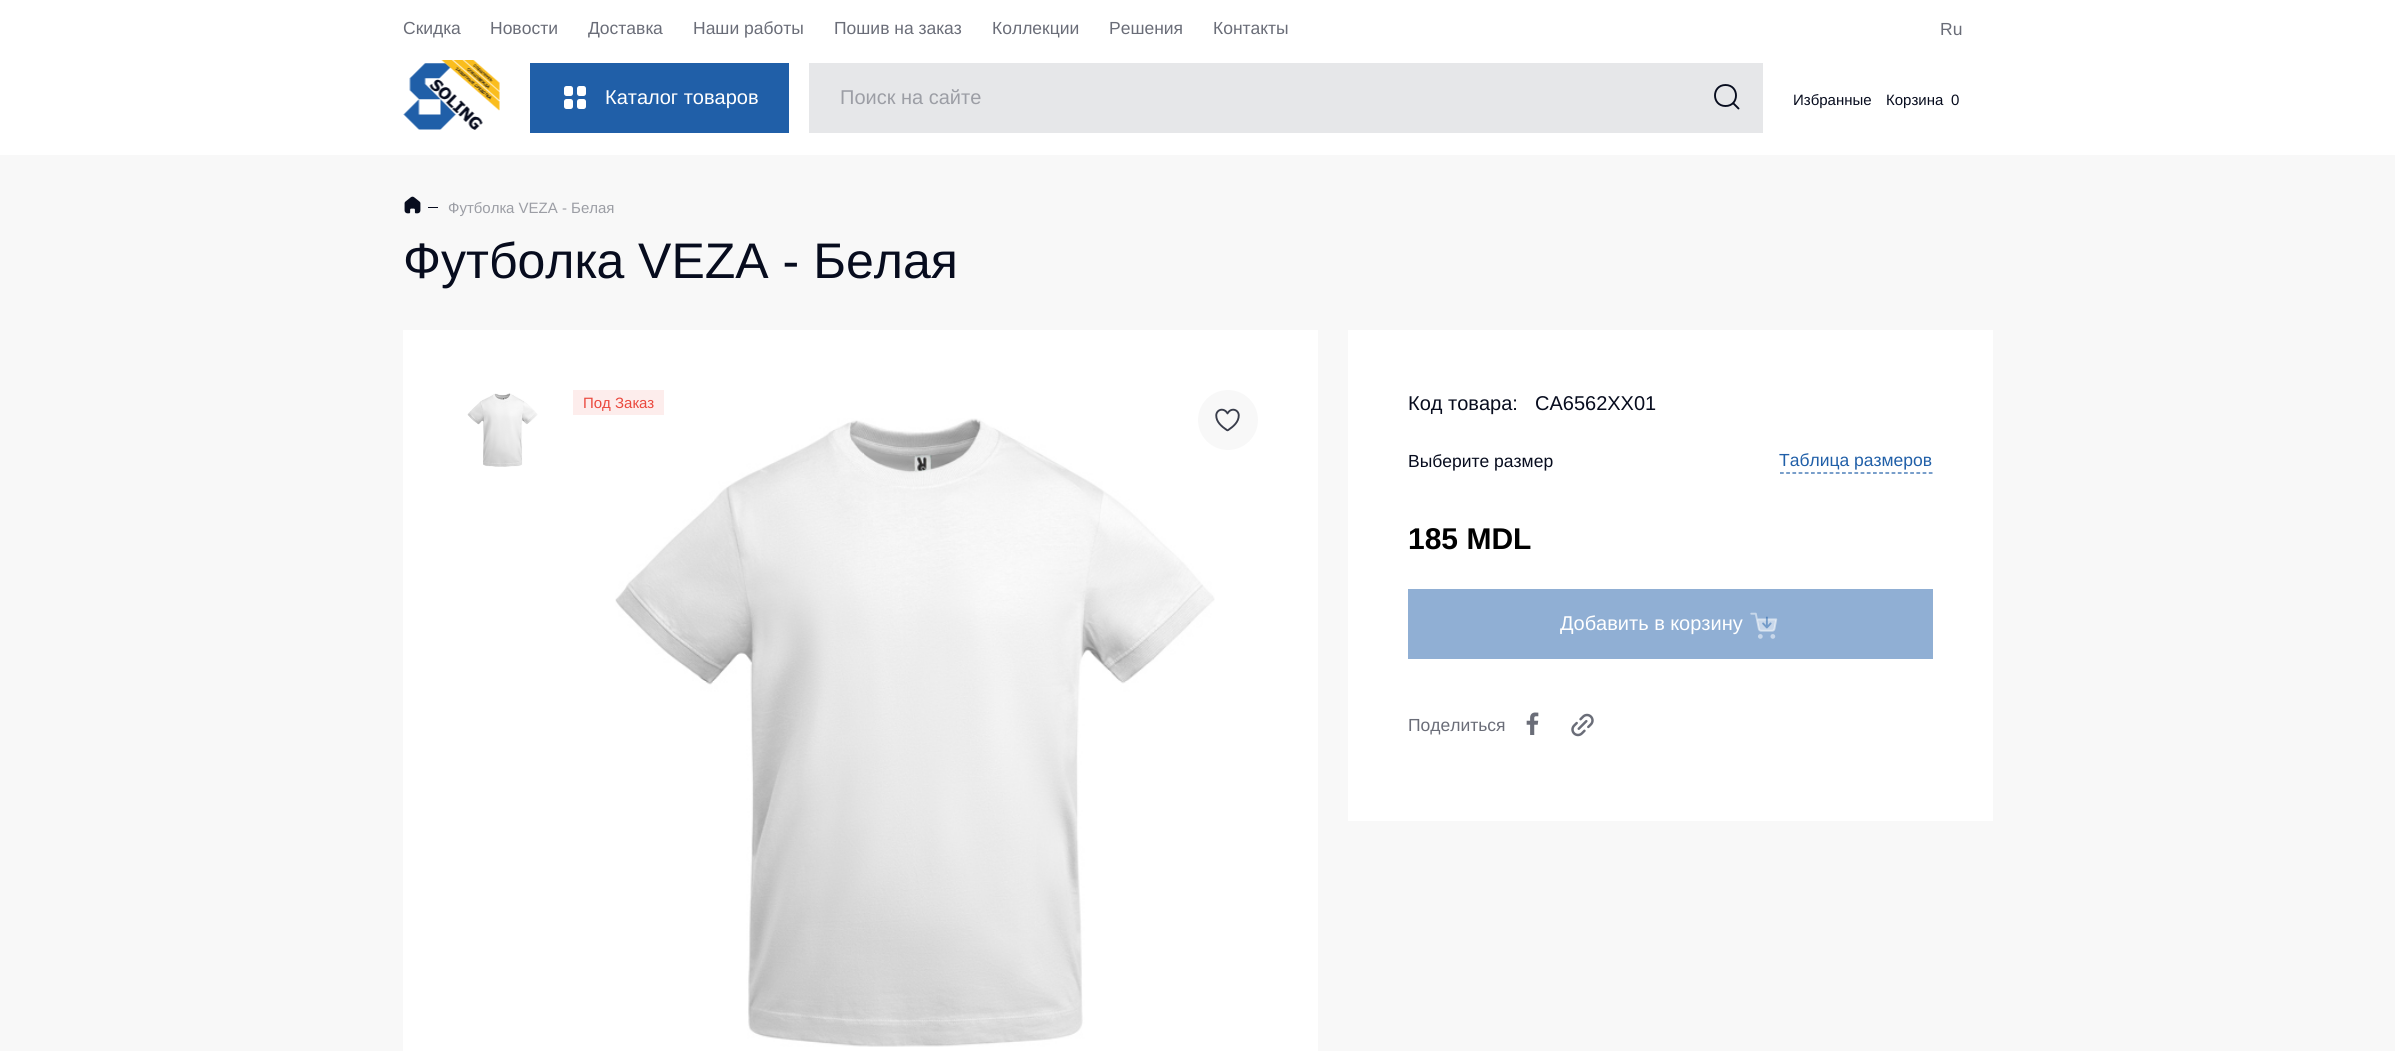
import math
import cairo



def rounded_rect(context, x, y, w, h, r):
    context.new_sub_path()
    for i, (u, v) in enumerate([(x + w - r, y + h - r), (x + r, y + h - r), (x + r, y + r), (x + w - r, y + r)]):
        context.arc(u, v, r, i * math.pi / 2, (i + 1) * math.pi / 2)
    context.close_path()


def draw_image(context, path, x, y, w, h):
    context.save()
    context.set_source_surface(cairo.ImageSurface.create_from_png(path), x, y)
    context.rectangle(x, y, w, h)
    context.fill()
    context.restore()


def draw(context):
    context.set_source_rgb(248 / 255, 248 / 255, 248 / 255)
    context.paint()
    context.set_source_rgb(1, 1, 1)
    context.rectangle(0, 0, 2395, 155)
    context.fill()
    draw_image(context, "images/1.png", 403, 60, 97, 70)
    context.set_source_rgb(32 / 255, 95 / 255, 168 / 255)
    context.rectangle(530, 63, 259, 70)
    context.fill()
    context.set_source_rgb(1, 1, 1)
    rounded_rect(context, 564, 86, 9, 10, 2.5)
    context.fill()
    rounded_rect(context, 577, 86, 9, 10, 2.5)
    context.fill()
    rounded_rect(context, 564, 99, 9, 10, 2.5)
    context.fill()
    rounded_rect(context, 577, 99, 9, 10, 2.5)
    context.fill()
    context.set_source_rgb(230 / 255, 231 / 255, 233 / 255)
    context.rectangle(809, 63, 954, 70)
    context.fill()
    context.new_path()
    context.move_to(1725.5, 106)
    context.curve_to(1739.5, 106, 1739.5, 85, 1725.5, 85)
    context.curve_to(1711.5, 85, 1711.5, 106, 1725.5, 106)
    context.close_path()
    context.set_source_rgb(7 / 255, 12 / 255, 30 / 255)
    context.set_line_width(1.9)
    context.set_line_join(cairo.LineJoin.ROUND)
    context.stroke()
    context.new_path()
    context.move_to(1733.5, 103.5)
    context.line_to(1738.5, 108.5)
    context.set_line_cap(cairo.LineCap.ROUND)
    context.stroke()
    draw_image(context, "images/2.png", 404, 196, 17, 18)
    context.rectangle(428, 207, 10, 1)
    context.fill()
    context.set_source_rgb(1, 1, 1)
    context.rectangle(403, 330, 915, 721)
    context.fill()
    draw_image(context, "images/3.png", 467, 393, 71, 74)
    context.set_source_rgb(253 / 255, 237 / 255, 236 / 255)
    context.rectangle(573, 390, 91, 25)
    context.fill()
    draw_image(context, "images/5.png", 615, 418, 600, 629)
    context.set_source_rgb(248 / 255, 248 / 255, 248 / 255)
    context.arc(1228, 420, 30, 0, 2 * math.pi)
    context.fill()
    draw_image(context, "images/4.png", 1215, 408, 25, 24)
    context.set_source_rgb(1, 1, 1)
    context.rectangle(1348, 330, 645, 491)
    context.fill()
    context.new_path()
    context.move_to(1780, 473)
    context.line_to(1932.5, 473)
    context.set_source_rgb(32 / 255, 95 / 255, 168 / 255)
    context.set_line_width(1.2)
    context.set_line_cap(cairo.LineCap.BUTT)
    context.set_line_join(cairo.LineJoin.MITER)
    context.set_dash([3.75, 2.45])
    context.stroke()
    context.set_source_rgb(144 / 255, 175 / 255, 212 / 255)
    context.rectangle(1408, 589, 525, 70)
    context.fill()
    draw_image(context, "images/6.png", 1750, 612, 28, 27)
    draw_image(context, "images/7.png", 1526, 712, 13, 23)
    draw_image(context, "images/8.png", 1571, 713, 23, 24)
    context.select_font_face("Liberation Sans")
    context.set_font_size(17.5)
    context.set_source_rgb(106 / 255, 109 / 255, 120 / 255)
    context.move_to(403, 34)
    context.show_text("Скидка")
    context.move_to(490, 34)
    context.show_text("Новости")
    context.move_to(588, 34)
    context.show_text("Доставка")
    context.move_to(693, 34)
    context.show_text("Наши работы")
    context.move_to(834, 34)
    context.show_text("Пошив на заказ")
    context.move_to(992, 34)
    context.show_text("Коллекции")
    context.move_to(1109, 34)
    context.show_text("Решения")
    context.move_to(1213, 34)
    context.show_text("Контакты")
    context.move_to(1940, 35)
    context.show_text("Ru")
    context.set_font_size(20)
    context.set_source_rgb(1, 1, 1)
    context.move_to(605, 104)
    context.show_text("Каталог товаров")
    context.set_source_rgb(156 / 255, 158 / 255, 165 / 255)
    context.move_to(840, 104)
    context.show_text("Поиск на сайте")
    context.set_font_size(15)
    context.set_source_rgb(7 / 255, 12 / 255, 30 / 255)
    context.move_to(1793, 105)
    context.show_text("Избранные")
    context.move_to(1886, 105)
    context.show_text("Корзина")
    context.move_to(1951, 105)
    context.show_text("0")
    context.set_source_rgb(156 / 255, 158 / 255, 165 / 255)
    context.move_to(448, 213)
    context.show_text("Футболка VEZA - Белая")
    context.set_font_size(50)
    context.set_source_rgb(7 / 255, 12 / 255, 30 / 255)
    context.move_to(403, 278)
    context.show_text("Футболка VEZA - Белая")
    context.set_font_size(15)
    context.set_source_rgb(234 / 255, 73 / 255, 62 / 255)
    context.move_to(583, 408)
    context.show_text("Под Заказ")
    context.set_font_size(20)
    context.set_source_rgb(7 / 255, 12 / 255, 30 / 255)
    context.move_to(1408, 410)
    context.show_text("Код товара:")
    context.move_to(1535, 410)
    context.show_text("CA6562XX01")
    context.set_font_size(17.5)
    context.move_to(1408, 467)
    context.show_text("Выберите размер")
    context.set_source_rgb(32 / 255, 95 / 255, 168 / 255)
    context.move_to(1779, 466)
    context.show_text("Таблица размеров")
    context.select_font_face("Liberation Sans", cairo.FontSlant.NORMAL, cairo.FontWeight.BOLD)
    context.set_font_size(30)
    context.set_source_rgb(0, 0, 0)
    context.move_to(1408, 549)
    context.show_text("185 MDL")
    context.select_font_face("Liberation Sans")
    context.set_font_size(20)
    context.set_source_rgb(1, 1, 1)
    context.move_to(1560, 630)
    context.show_text("Добавить в корзину")
    context.set_font_size(17.5)
    context.set_source_rgb(106 / 255, 109 / 255, 120 / 255)
    context.move_to(1408, 731)
    context.show_text("Поделиться")


surface = cairo.ImageSurface(cairo.Format.RGB24, 2395, 1051)
context = cairo.Context(surface)
options = cairo.FontOptions()
options.set_hint_metrics(cairo.HintMetrics.OFF)
options.set_hint_style(cairo.HintStyle.NONE)
context.set_font_options(options)
context.set_miter_limit(4)
draw(context)
surface.write_to_png("out.png")
